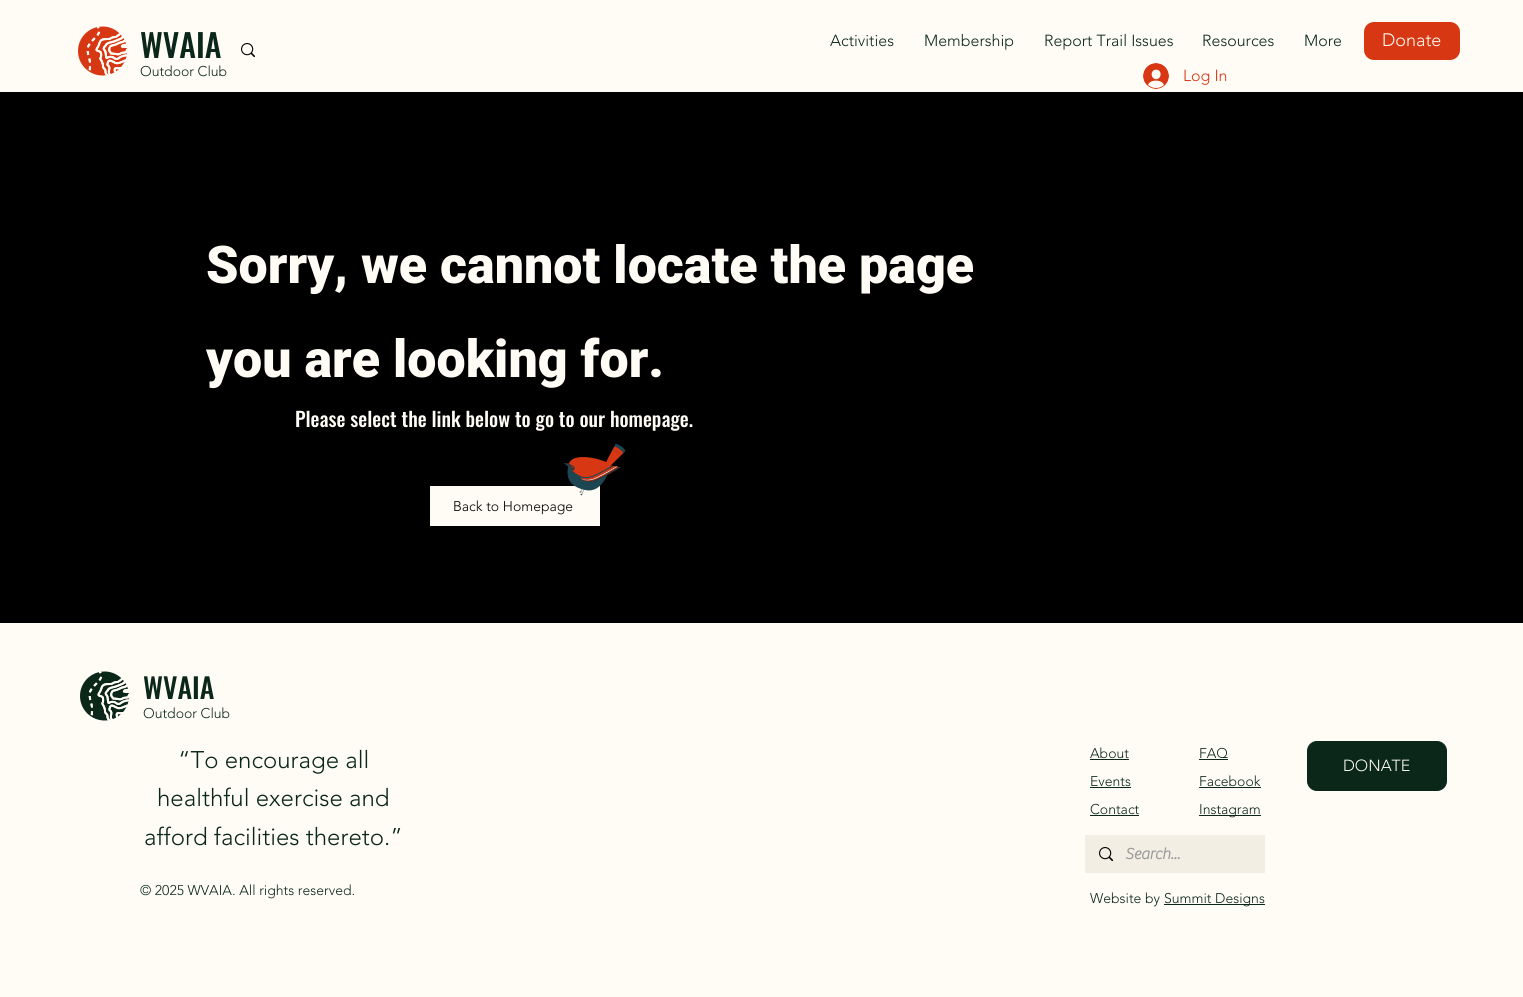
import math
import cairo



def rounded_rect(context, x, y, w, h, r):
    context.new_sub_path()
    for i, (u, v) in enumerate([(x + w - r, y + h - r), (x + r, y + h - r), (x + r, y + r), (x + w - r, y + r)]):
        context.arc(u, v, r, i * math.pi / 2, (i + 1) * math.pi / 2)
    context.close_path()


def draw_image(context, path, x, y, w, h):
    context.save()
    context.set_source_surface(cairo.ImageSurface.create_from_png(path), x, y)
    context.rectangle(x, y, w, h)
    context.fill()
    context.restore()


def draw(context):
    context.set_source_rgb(1, 252 / 255, 246 / 255)
    context.paint()
    draw_image(context, "images/1.png", 78, 26, 49, 50)
    draw_image(context, "images/2.png", 241, 43, 14, 14)
    context.set_source_rgb(216 / 255, 55 / 255, 19 / 255)
    rounded_rect(context, 1364, 22, 96, 38, 10)
    context.fill()
    draw_image(context, "images/3.png", 1143, 63, 26, 26)
    context.set_source_rgb(0, 0, 0)
    context.rectangle(0, 92, 1523, 531)
    context.fill()
    context.set_source_rgb(1, 252 / 255, 246 / 255)
    context.rectangle(430, 486, 170, 40)
    context.fill()
    draw_image(context, "images/4.png", 563, 443, 63, 53)
    draw_image(context, "images/5.png", 80, 671, 49, 50)
    context.set_source_rgb(11 / 255, 39 / 255, 25 / 255)
    context.rectangle(1090, 759, 39, 1)
    context.fill()
    context.rectangle(1090, 787, 41, 1)
    context.fill()
    context.rectangle(1090, 815, 49, 1)
    context.fill()
    context.rectangle(1199, 759, 29, 1)
    context.fill()
    context.rectangle(1199, 787, 62, 1)
    context.fill()
    context.rectangle(1199, 815, 62, 1)
    context.fill()
    rounded_rect(context, 1307.5, 741.5, 139, 49, 9.5)
    context.fill_preserve()
    context.set_line_width(1)
    context.stroke()
    context.set_source_rgb(242 / 255, 238 / 255, 228 / 255)
    context.rectangle(1085, 835, 180, 38)
    context.fill()
    draw_image(context, "images/6.png", 1099, 847, 14, 14)
    context.set_source_rgb(11 / 255, 39 / 255, 25 / 255)
    context.rectangle(1164, 904, 101, 1)
    context.fill()
    context.select_font_face("Oswald Medium")
    context.set_font_size(32)
    context.move_to(140, 58)
    context.show_text("WVAIA")
    context.select_font_face("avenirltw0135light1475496 Light")
    context.set_font_size(14)
    context.move_to(140, 76)
    context.show_text("Outdoor Club")
    context.set_font_size(16)
    context.move_to(830, 46)
    context.show_text("Activities")
    context.move_to(924, 46)
    context.show_text("Membership")
    context.move_to(1044, 46)
    context.show_text("Report Trail Issues")
    context.move_to(1202, 46)
    context.show_text("Resources")
    context.move_to(1304, 46)
    context.show_text("More")
    context.set_font_size(18)
    context.set_source_rgb(1, 252 / 255, 246 / 255)
    context.move_to(1382, 46)
    context.show_text("Donate")
    context.set_font_size(16)
    context.set_source_rgb(216 / 255, 55 / 255, 19 / 255)
    context.move_to(1183, 81)
    context.show_text("Log In")
    context.select_font_face("Roboto Black")
    context.set_font_size(52)
    context.set_source_rgb(1, 252 / 255, 246 / 255)
    context.move_to(206, 283)
    context.show_text("Sorry, we cannot locate the page")
    context.move_to(206, 377)
    context.show_text("you are looking for.")
    context.select_font_face("Oswald Medium")
    context.set_font_size(20)
    context.move_to(295, 427)
    context.show_text("Please select the link below to go to our homepage.")
    context.select_font_face("avenirltw0135light1475496 Light")
    context.set_font_size(14)
    context.set_source_rgb(0, 0, 0)
    context.move_to(453, 511)
    context.show_text("Back to Homepage")
    context.select_font_face("Oswald Medium")
    context.set_font_size(28)
    context.set_source_rgb(11 / 255, 39 / 255, 25 / 255)
    context.move_to(143, 699)
    context.show_text("WVAIA")
    context.select_font_face("avenirltw0135light1475496 Light")
    context.set_font_size(14)
    context.move_to(143, 718)
    context.show_text("Outdoor Club")
    context.set_font_size(24)
    context.move_to(178, 768)
    context.show_text("“To encourage all")
    context.move_to(157, 806)
    context.show_text("healthful exercise and")
    context.move_to(144, 845)
    context.show_text("afford facilities thereto.”")
    context.set_font_size(14)
    context.move_to(140, 895)
    context.show_text("© 2025 WVAIA. All rights reserved.")
    context.move_to(1090, 758)
    context.show_text("About")
    context.move_to(1090, 786)
    context.show_text("Events")
    context.move_to(1090, 814)
    context.show_text("Contact")
    context.move_to(1199, 758)
    context.show_text("FAQ")
    context.move_to(1199, 786)
    context.show_text("Facebook")
    context.move_to(1199, 814)
    context.show_text("Instagram")
    context.set_font_size(16)
    context.set_source_rgb(1, 252 / 255, 246 / 255)
    context.move_to(1343, 771)
    context.show_text("DONATE")
    context.select_font_face("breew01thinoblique", cairo.FontSlant.NORMAL, cairo.FontWeight.BOLD)
    context.set_source_rgb(153 / 255, 153 / 255, 153 / 255)
    context.move_to(1125, 859)
    context.show_text("Search...")
    context.select_font_face("avenirltw0135light1475496 Light")
    context.set_font_size(14)
    context.set_source_rgb(11 / 255, 39 / 255, 25 / 255)
    context.move_to(1090, 903)
    context.show_text("Website by")
    context.move_to(1164, 903)
    context.show_text("Summit Designs")


surface = cairo.ImageSurface(cairo.Format.RGB24, 1523, 997)
context = cairo.Context(surface)
options = cairo.FontOptions()
options.set_hint_metrics(cairo.HintMetrics.OFF)
options.set_hint_style(cairo.HintStyle.NONE)
context.set_font_options(options)
context.set_miter_limit(4)
draw(context)
surface.write_to_png("out.png")
